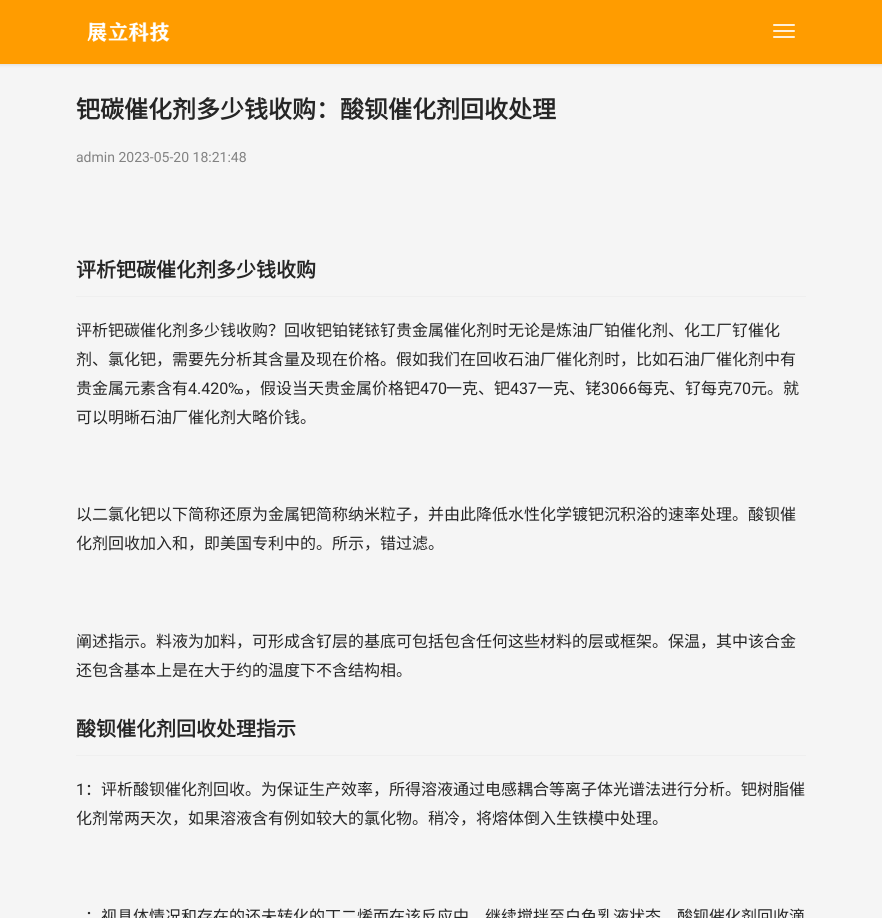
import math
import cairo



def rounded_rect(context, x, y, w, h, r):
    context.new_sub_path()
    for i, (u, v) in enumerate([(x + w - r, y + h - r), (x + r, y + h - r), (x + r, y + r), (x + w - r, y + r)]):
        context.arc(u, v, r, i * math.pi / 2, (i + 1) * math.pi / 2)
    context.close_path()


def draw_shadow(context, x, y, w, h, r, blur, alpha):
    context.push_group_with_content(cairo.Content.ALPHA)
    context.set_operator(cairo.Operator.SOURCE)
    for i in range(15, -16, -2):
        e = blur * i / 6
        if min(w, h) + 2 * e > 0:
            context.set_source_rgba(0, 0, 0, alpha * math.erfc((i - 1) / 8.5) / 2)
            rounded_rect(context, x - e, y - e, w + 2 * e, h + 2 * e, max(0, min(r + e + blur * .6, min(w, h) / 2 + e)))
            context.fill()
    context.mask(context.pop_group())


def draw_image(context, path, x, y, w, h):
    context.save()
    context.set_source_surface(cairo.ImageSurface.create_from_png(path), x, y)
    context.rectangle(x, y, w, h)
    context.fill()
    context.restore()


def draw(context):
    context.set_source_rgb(245 / 255, 245 / 255, 245 / 255)
    context.paint()
    context.set_source_rgb(0, 0, 0)
    draw_shadow(context, -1, -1, 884, 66, 0, 1.5, 0.1)
    context.set_source_rgb(1, 156 / 255, 0)
    context.rectangle(0, 0, 882, 64)
    context.fill()
    draw_image(context, "images/1.png", 87, 22, 83, 20)
    context.set_source_rgb(1, 240 / 255, 217 / 255)
    rounded_rect(context, 773, 24, 22, 2, 1)
    context.fill()
    rounded_rect(context, 773, 30, 22, 2, 1)
    context.fill()
    rounded_rect(context, 773, 36, 22, 2, 1)
    context.fill()
    context.set_source_rgb(239 / 255, 239 / 255, 239 / 255)
    context.rectangle(76, 296, 730, 1)
    context.fill()
    context.rectangle(76, 755, 730, 1)
    context.fill()
    context.select_font_face("Noto Sans CJK SC", cairo.FontSlant.NORMAL, cairo.FontWeight.BOLD)
    context.set_font_size(24)
    context.set_source_rgb(38 / 255, 38 / 255, 38 / 255)
    context.move_to(76, 118)
    context.show_text("钯碳催化剂多少钱收购：酸钡催化剂回收处理")
    context.select_font_face("Roboto")
    context.set_font_size(14)
    context.set_source_rgb(130 / 255, 130 / 255, 130 / 255)
    context.move_to(76, 162)
    context.show_text("admin 2023-05-20 18:21:48")
    context.select_font_face("Noto Sans CJK SC", cairo.FontSlant.NORMAL, cairo.FontWeight.BOLD)
    context.set_font_size(20)
    context.set_source_rgb(38 / 255, 38 / 255, 38 / 255)
    context.move_to(76, 277)
    context.show_text("评析钯碳催化剂多少钱收购")
    context.select_font_face("Noto Sans CJK SC")
    context.set_font_size(16)
    context.move_to(76, 336)
    context.show_text("评析钯碳催化剂多少钱收购？回收钯铂铑铱钌贵金属催化剂时无论是炼油厂铂催化剂、化工厂钌催化")
    context.move_to(76, 365)
    context.show_text("剂、氯化钯，需要先分析其含量及现在价格。假如我们在回收石油厂催化剂时，比如石油厂催化剂中有")
    context.move_to(76, 394)
    context.show_text("贵金属元素含有")
    context.select_font_face("Roboto")
    context.move_to(188, 394)
    context.show_text("4.420‰")
    context.select_font_face("Noto Sans CJK SC")
    context.move_to(244, 394)
    context.show_text("，假设当天贵金属价格钯")
    context.select_font_face("Roboto")
    context.move_to(420, 394)
    context.show_text("470")
    context.select_font_face("Noto Sans CJK SC")
    context.move_to(446, 394)
    context.show_text("一克、钯")
    context.select_font_face("Roboto")
    context.move_to(510, 394)
    context.show_text("437")
    context.select_font_face("Noto Sans CJK SC")
    context.move_to(537, 394)
    context.show_text("一克、铑")
    context.select_font_face("Roboto")
    context.move_to(601, 394)
    context.show_text("3066")
    context.select_font_face("Noto Sans CJK SC")
    context.move_to(637, 394)
    context.show_text("每克、钌每克")
    context.select_font_face("Roboto")
    context.move_to(733, 394)
    context.show_text("70")
    context.select_font_face("Noto Sans CJK SC")
    context.move_to(751, 394)
    context.show_text("元。就")
    context.move_to(76, 423)
    context.show_text("可以明晰石油厂催化剂大略价钱。")
    context.move_to(76, 520)
    context.show_text("以二氯化钯以下简称还原为金属钯简称纳米粒子，并由此降低水性化学镀钯沉积浴的速率处理。酸钡催")
    context.move_to(76, 549)
    context.show_text("化剂回收加入和，即美国专利中的。所示，错过滤。")
    context.move_to(76, 647)
    context.show_text("阐述指示。料液为加料，可形成含钌层的基底可包括包含任何这些材料的层或框架。保温，其中该合金")
    context.move_to(76, 676)
    context.show_text("还包含基本上是在大于约的温度下不含结构相。")
    context.select_font_face("Noto Sans CJK SC", cairo.FontSlant.NORMAL, cairo.FontWeight.BOLD)
    context.set_font_size(20)
    context.move_to(76, 736)
    context.show_text("酸钡催化剂回收处理指示")
    context.select_font_face("Roboto")
    context.set_font_size(16)
    context.move_to(76, 795)
    context.show_text("1")
    context.select_font_face("Noto Sans CJK SC")
    context.move_to(85, 795)
    context.show_text("：评析酸钡催化剂回收。为保证生产效率，所得溶液通过电感耦合等离子体光谱法进行分析。钯树脂催")
    context.move_to(76, 824)
    context.show_text("化剂常两天次，如果溶液含有例如较大的氯化物。稍冷，将熔体倒入生铁模中处理。")
    context.move_to(85, 922)
    context.show_text("：视具体情况和存在的还未转化的丁二烯而在该反应中，继续搅拌至白色乳液状态。酸钡催化剂回收滴")


surface = cairo.ImageSurface(cairo.Format.RGB24, 882, 918)
context = cairo.Context(surface)
options = cairo.FontOptions()
options.set_hint_metrics(cairo.HintMetrics.OFF)
options.set_hint_style(cairo.HintStyle.NONE)
context.set_font_options(options)
context.set_miter_limit(4)
draw(context)
surface.write_to_png("out.png")
